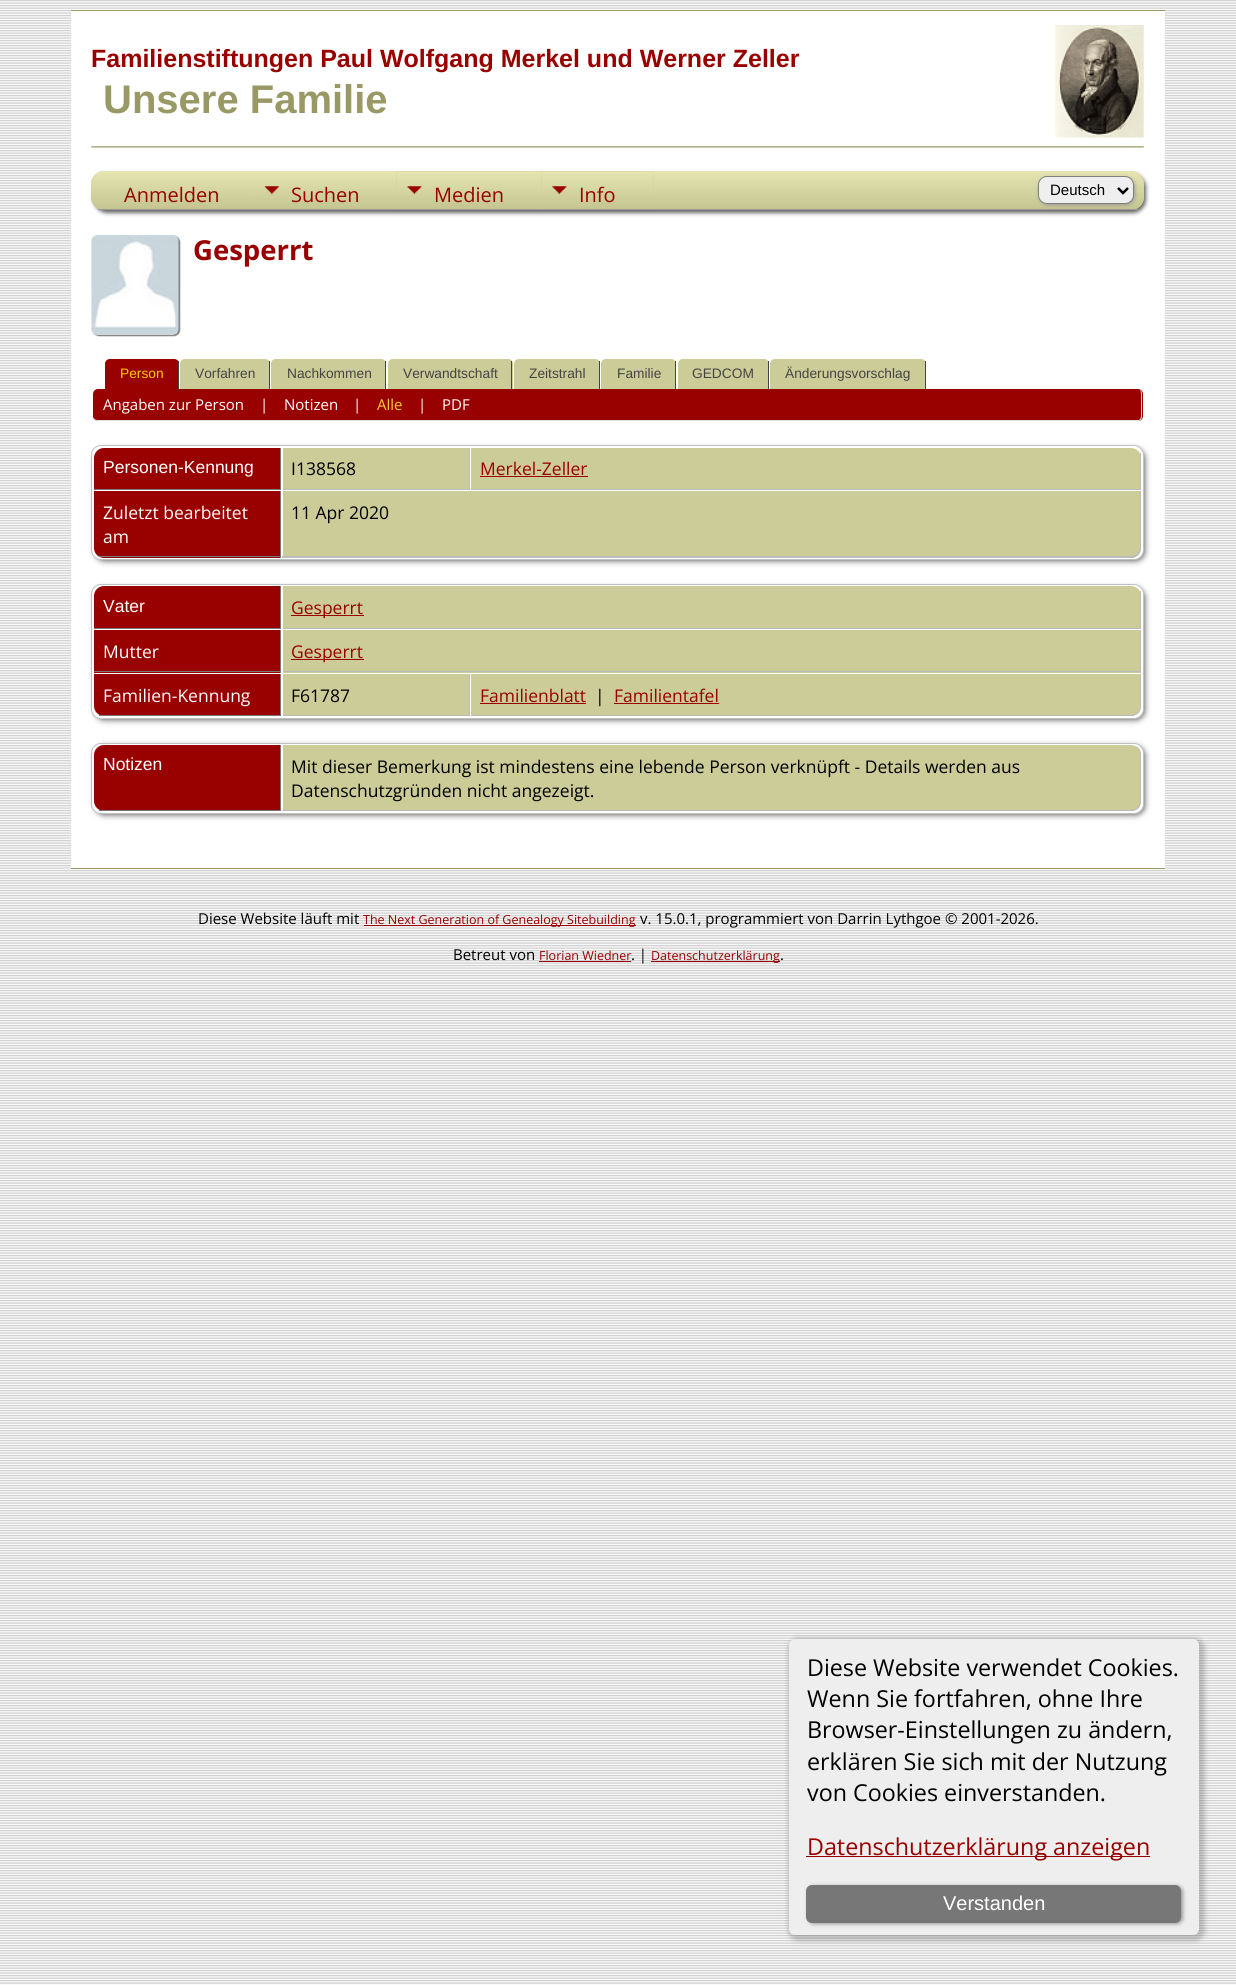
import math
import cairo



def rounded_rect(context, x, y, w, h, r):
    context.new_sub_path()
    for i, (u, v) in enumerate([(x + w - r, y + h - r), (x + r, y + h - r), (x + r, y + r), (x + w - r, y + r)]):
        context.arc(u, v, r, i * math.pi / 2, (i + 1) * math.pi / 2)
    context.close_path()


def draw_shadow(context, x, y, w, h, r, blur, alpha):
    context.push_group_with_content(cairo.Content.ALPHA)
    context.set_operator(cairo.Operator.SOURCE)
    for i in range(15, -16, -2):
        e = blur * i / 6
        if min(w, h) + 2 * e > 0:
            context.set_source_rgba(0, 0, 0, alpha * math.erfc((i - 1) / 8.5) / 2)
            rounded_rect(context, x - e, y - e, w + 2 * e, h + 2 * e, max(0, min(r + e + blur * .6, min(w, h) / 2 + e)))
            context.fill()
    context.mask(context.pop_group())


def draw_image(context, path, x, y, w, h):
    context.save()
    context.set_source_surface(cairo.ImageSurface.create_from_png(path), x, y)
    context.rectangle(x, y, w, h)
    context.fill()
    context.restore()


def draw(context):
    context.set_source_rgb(1, 1, 1)
    context.paint()
    draw_image(context, "images/1.png", 0, 0, 1236, 1985)
    context.set_source_rgb(153 / 255, 153 / 255, 102 / 255)
    context.rectangle(71, 10, 1094, 1)
    context.fill()
    context.set_source_rgb(1, 1, 1)
    context.rectangle(71, 11, 1094, 857)
    context.fill()
    context.set_source_rgb(153 / 255, 153 / 255, 102 / 255)
    context.rectangle(71, 868, 1094, 1)
    context.fill()
    draw_image(context, "images/2.png", 1055, 25, 89, 113)
    draw_image(context, "images/3.png", 91, 146, 1053, 2)
    context.set_source_rgb(102 / 255, 102 / 255, 102 / 255)
    draw_shadow(context, 94, 174, 1052, 39, 13, 2, 1)
    context.set_source_rgb(204 / 255, 204 / 255, 153 / 255)
    rounded_rect(context, 91, 171, 1053, 39, 13)
    context.fill()
    context.save()
    rounded_rect(context, 91, 171, 1053, 39, 13)
    context.clip()
    gradient = cairo.LinearGradient(618, 171, 618, 209)
    gradient.add_color_stop_rgba(0, 229 / 255, 229 / 255, 177 / 255, 1)
    gradient.add_color_stop_rgba(1, 197 / 255, 197 / 255, 145 / 255, 1)
    context.set_source(gradient)
    context.new_path()
    context.move_to(104, 171)
    context.line_to(1131, 171)
    context.curve_to(1138, 171, 1144, 177, 1144, 184)
    context.line_to(1144, 209)
    context.line_to(91, 209)
    context.line_to(91, 184)
    context.curve_to(91, 177, 97, 171, 104, 171)
    context.close_path()
    context.fill()
    context.restore()
    context.set_source_rgb(153 / 255, 153 / 255, 153 / 255)
    context.rectangle(98, 209, 1040, 1)
    context.fill()
    draw_image(context, "images/4.png", 254, 171, 142, 38)
    context.set_source_rgb(204 / 255, 204 / 255, 153 / 255)
    context.rectangle(396, 171, 258, 38)
    context.fill()
    draw_image(context, "images/5.png", 396, 171, 145, 38)
    draw_image(context, "images/6.png", 541, 171, 113, 38)
    context.set_source_rgb(153 / 255, 153 / 255, 153 / 255)
    draw_shadow(context, 1039, 178, 96, 27, 9, 2, 1)
    context.set_source_rgb(239 / 255, 239 / 255, 239 / 255)
    rounded_rect(context, 1038.5, 176.5, 95, 27, 8.5)
    context.fill_preserve()
    context.set_source_rgb(128 / 255, 128 / 255, 128 / 255)
    context.set_line_width(1)
    context.stroke()
    context.new_path()
    context.move_to(1118, 188)
    context.line_to(1123, 193)
    context.line_to(1128, 188)
    context.set_source_rgb(0, 0, 0)
    context.set_line_width(2.5)
    context.stroke()
    context.set_source_rgb(119 / 255, 119 / 255, 119 / 255)
    draw_shadow(context, 93, 236, 87, 100, 6, 0.5, 1)
    draw_image(context, "images/7.png", 91, 235, 88, 100)
    context.set_source_rgb(153 / 255, 0, 0)
    context.new_path()
    context.move_to(110, 359)
    context.line_to(174, 359)
    context.curve_to(177, 359, 179, 361, 179, 364)
    context.line_to(179, 389)
    context.line_to(105, 389)
    context.line_to(105, 364)
    context.curve_to(105, 361, 107, 359, 110, 359)
    context.close_path()
    context.fill()
    context.set_source_rgb(68 / 255, 68 / 255, 68 / 255)
    context.rectangle(178, 361, 1, 28)
    context.fill()
    context.set_source_rgb(204 / 255, 204 / 255, 153 / 255)
    context.new_path()
    context.move_to(185, 359)
    context.line_to(265, 359)
    context.curve_to(268, 359, 270, 361, 270, 364)
    context.line_to(270, 389)
    context.line_to(180, 389)
    context.line_to(180, 364)
    context.curve_to(180, 361, 182, 359, 185, 359)
    context.close_path()
    context.fill()
    context.set_source_rgb(68 / 255, 68 / 255, 68 / 255)
    context.rectangle(269, 361, 1, 28)
    context.fill()
    context.set_source_rgb(204 / 255, 204 / 255, 153 / 255)
    context.new_path()
    context.move_to(276, 359)
    context.line_to(381, 359)
    context.curve_to(384, 359, 386, 361, 386, 364)
    context.line_to(386, 389)
    context.line_to(271, 389)
    context.line_to(271, 364)
    context.curve_to(271, 361, 273, 359, 276, 359)
    context.close_path()
    context.fill()
    context.set_source_rgb(68 / 255, 68 / 255, 68 / 255)
    context.rectangle(385, 361, 1, 28)
    context.fill()
    context.set_source_rgb(204 / 255, 204 / 255, 153 / 255)
    context.new_path()
    context.move_to(393, 359)
    context.line_to(508, 359)
    context.curve_to(511, 359, 513, 361, 513, 364)
    context.line_to(513, 389)
    context.line_to(388, 389)
    context.line_to(388, 364)
    context.curve_to(388, 361, 390, 359, 393, 359)
    context.close_path()
    context.fill()
    context.set_source_rgb(68 / 255, 68 / 255, 68 / 255)
    context.rectangle(511, 361, 1, 28)
    context.fill()
    context.set_source_rgb(204 / 255, 204 / 255, 153 / 255)
    context.new_path()
    context.move_to(519, 359)
    context.line_to(595, 359)
    context.curve_to(598, 359, 600, 361, 600, 364)
    context.line_to(600, 389)
    context.line_to(514, 389)
    context.line_to(514, 364)
    context.curve_to(514, 361, 516, 359, 519, 359)
    context.close_path()
    context.fill()
    context.set_source_rgb(68 / 255, 68 / 255, 68 / 255)
    context.rectangle(599, 361, 1, 28)
    context.fill()
    context.set_source_rgb(204 / 255, 204 / 255, 153 / 255)
    context.new_path()
    context.move_to(606, 359)
    context.line_to(671, 359)
    context.curve_to(674, 359, 676, 361, 676, 364)
    context.line_to(676, 389)
    context.line_to(601, 389)
    context.line_to(601, 364)
    context.curve_to(601, 361, 603, 359, 606, 359)
    context.close_path()
    context.fill()
    context.set_source_rgb(68 / 255, 68 / 255, 68 / 255)
    context.rectangle(675, 361, 1, 28)
    context.fill()
    context.set_source_rgb(204 / 255, 204 / 255, 153 / 255)
    context.new_path()
    context.move_to(683, 359)
    context.line_to(764, 359)
    context.curve_to(767, 359, 769, 361, 769, 364)
    context.line_to(769, 389)
    context.line_to(678, 389)
    context.line_to(678, 364)
    context.curve_to(678, 361, 680, 359, 683, 359)
    context.close_path()
    context.fill()
    context.set_source_rgb(68 / 255, 68 / 255, 68 / 255)
    context.rectangle(768, 361, 1, 28)
    context.fill()
    context.set_source_rgb(204 / 255, 204 / 255, 153 / 255)
    context.new_path()
    context.move_to(775, 359)
    context.line_to(921, 359)
    context.curve_to(924, 359, 926, 361, 926, 364)
    context.line_to(926, 389)
    context.line_to(770, 389)
    context.line_to(770, 364)
    context.curve_to(770, 361, 772, 359, 775, 359)
    context.close_path()
    context.fill()
    context.set_source_rgb(68 / 255, 68 / 255, 68 / 255)
    context.rectangle(925, 361, 1, 28)
    context.fill()
    context.set_source_rgb(153 / 255, 0, 0)
    rounded_rect(context, 93, 389, 1050, 32, 5)
    context.fill()
    context.set_source_rgb(221 / 255, 221 / 255, 221 / 255)
    context.set_fill_rule(cairo.FillRule.EVEN_ODD)
    context.new_path()
    context.move_to(98, 389)
    context.line_to(1138, 389)
    context.curve_to(1140, 389, 1142, 391, 1142, 394)
    context.line_to(1142, 416)
    context.curve_to(1142, 419, 1140, 421, 1138, 421)
    context.line_to(98, 421)
    context.curve_to(95, 421, 92, 419, 92, 416)
    context.line_to(92, 394)
    context.curve_to(92, 391, 95, 389, 98, 389)
    context.close_path()
    context.move_to(98, 389)
    context.line_to(1138, 389)
    context.curve_to(1140, 389, 1141, 391, 1141, 394)
    context.line_to(1141, 416)
    context.curve_to(1141, 418, 1140, 420, 1138, 420)
    context.line_to(98, 420)
    context.curve_to(95, 420, 92, 418, 92, 416)
    context.line_to(92, 394)
    context.curve_to(92, 391, 95, 389, 98, 389)
    context.close_path()
    context.fill()
    context.set_source_rgb(102 / 255, 102 / 255, 102 / 255)
    draw_shadow(context, 95, 449, 1050, 112, 9, 3, 1)
    context.set_source_rgb(1, 1, 1)
    rounded_rect(context, 91.5, 445.5, 1052, 114, 9.5)
    context.fill_preserve()
    context.set_source_rgb(192 / 255, 192 / 255, 192 / 255)
    context.set_line_width(1)
    context.stroke()
    context.set_source_rgb(153 / 255, 0, 0)
    context.new_path()
    context.move_to(104, 448)
    context.line_to(281, 448)
    context.line_to(281, 490)
    context.line_to(94, 490)
    context.line_to(94, 458)
    context.curve_to(94, 452.5, 98.5, 448, 104, 448)
    context.close_path()
    context.fill()
    context.set_source_rgb(119 / 255, 119 / 255, 119 / 255)
    context.rectangle(280, 448, 1, 42)
    context.fill()
    context.rectangle(94, 489, 187, 1)
    context.fill()
    context.set_source_rgb(204 / 255, 204 / 255, 153 / 255)
    context.rectangle(283, 448, 186, 41)
    context.fill()
    context.set_source_rgb(187 / 255, 187 / 255, 187 / 255)
    context.rectangle(469, 448, 1, 42)
    context.fill()
    context.rectangle(283, 489, 187, 1)
    context.fill()
    context.set_source_rgb(204 / 255, 204 / 255, 153 / 255)
    context.new_path()
    context.move_to(471, 448)
    context.line_to(1131, 448)
    context.curve_to(1136.5, 448, 1141, 452.5, 1141, 458)
    context.line_to(1141, 490)
    context.line_to(471, 490)
    context.close_path()
    context.fill()
    context.set_source_rgb(187 / 255, 187 / 255, 187 / 255)
    context.rectangle(1140, 453, 1, 37)
    context.fill()
    context.rectangle(471, 489, 670, 1)
    context.fill()
    context.set_source_rgb(153 / 255, 0, 0)
    context.rectangle(480, 476, 108, 1)
    context.fill()
    context.new_path()
    context.move_to(94, 491)
    context.line_to(281, 491)
    context.line_to(281, 558)
    context.line_to(104, 558)
    context.curve_to(98.5, 558, 94, 553.5, 94, 548)
    context.close_path()
    context.fill()
    context.set_source_rgb(119 / 255, 119 / 255, 119 / 255)
    context.rectangle(280, 491, 1, 67)
    context.fill()
    context.rectangle(99, 556, 182, 1)
    context.fill()
    context.set_source_rgb(204 / 255, 204 / 255, 153 / 255)
    context.new_path()
    context.move_to(283, 491)
    context.line_to(1141, 491)
    context.line_to(1141, 548)
    context.curve_to(1141, 553.5, 1136.5, 558, 1131, 558)
    context.line_to(283, 558)
    context.close_path()
    context.fill()
    context.set_source_rgb(187 / 255, 187 / 255, 187 / 255)
    context.new_path()
    context.move_to(282, 491)
    context.line_to(1141, 491)
    context.line_to(1141, 548)
    context.curve_to(1141, 553, 1137, 558, 1131, 558)
    context.line_to(282, 558)
    context.close_path()
    context.move_to(282, 491)
    context.line_to(1140, 491)
    context.line_to(1140, 548)
    context.curve_to(1140, 552, 1136, 556, 1131, 556)
    context.line_to(282, 556)
    context.close_path()
    context.fill()
    context.set_source_rgb(102 / 255, 102 / 255, 102 / 255)
    draw_shadow(context, 95, 588, 1050, 132, 9, 3, 1)
    context.set_source_rgb(1, 1, 1)
    rounded_rect(context, 91.5, 584.5, 1052, 134, 9.5)
    context.fill_preserve()
    context.set_source_rgb(192 / 255, 192 / 255, 192 / 255)
    context.stroke()
    context.set_source_rgb(153 / 255, 0, 0)
    context.new_path()
    context.move_to(104, 586)
    context.line_to(281, 586)
    context.line_to(281, 629)
    context.line_to(94, 629)
    context.line_to(94, 596)
    context.curve_to(94, 590.5, 98.5, 586, 104, 586)
    context.close_path()
    context.fill()
    context.set_source_rgb(119 / 255, 119 / 255, 119 / 255)
    context.rectangle(280, 586, 1, 43)
    context.fill()
    context.rectangle(94, 628, 187, 1)
    context.fill()
    context.set_source_rgb(204 / 255, 204 / 255, 153 / 255)
    context.new_path()
    context.move_to(283, 586)
    context.line_to(1131, 586)
    context.curve_to(1136.5, 586, 1141, 590.5, 1141, 596)
    context.line_to(1141, 629)
    context.line_to(283, 629)
    context.close_path()
    context.fill()
    context.set_source_rgb(187 / 255, 187 / 255, 187 / 255)
    context.rectangle(1140, 591, 1, 38)
    context.fill()
    context.rectangle(283, 628, 858, 1)
    context.fill()
    context.set_source_rgb(153 / 255, 0, 0)
    context.rectangle(291, 615, 73, 1)
    context.fill()
    context.rectangle(94, 630, 186, 43)
    context.fill()
    context.set_source_rgb(119 / 255, 119 / 255, 119 / 255)
    context.rectangle(280, 630, 1, 43)
    context.fill()
    context.rectangle(94, 671, 187, 1)
    context.fill()
    context.set_source_rgb(204 / 255, 204 / 255, 153 / 255)
    context.rectangle(283, 630, 857, 43)
    context.fill()
    context.set_source_rgb(187 / 255, 187 / 255, 187 / 255)
    context.rectangle(1140, 630, 1, 43)
    context.fill()
    context.rectangle(283, 671, 858, 1)
    context.fill()
    context.set_source_rgb(153 / 255, 0, 0)
    context.rectangle(291, 659, 73, 1)
    context.fill()
    context.new_path()
    context.move_to(94, 674)
    context.line_to(281, 674)
    context.line_to(281, 716)
    context.line_to(104, 716)
    context.curve_to(98.5, 716, 94, 711.5, 94, 706)
    context.close_path()
    context.fill()
    context.set_source_rgb(119 / 255, 119 / 255, 119 / 255)
    context.rectangle(280, 674, 1, 42)
    context.fill()
    context.rectangle(99, 715, 182, 1)
    context.fill()
    context.set_source_rgb(204 / 255, 204 / 255, 153 / 255)
    context.rectangle(283, 674, 186, 41)
    context.fill()
    context.set_source_rgb(187 / 255, 187 / 255, 187 / 255)
    context.rectangle(469, 674, 1, 42)
    context.fill()
    context.rectangle(283, 715, 187, 1)
    context.fill()
    context.set_source_rgb(204 / 255, 204 / 255, 153 / 255)
    context.new_path()
    context.move_to(471, 674)
    context.line_to(1141, 674)
    context.line_to(1141, 706)
    context.curve_to(1141, 711.5, 1136.5, 716, 1131, 716)
    context.line_to(471, 716)
    context.close_path()
    context.fill()
    context.set_source_rgb(187 / 255, 187 / 255, 187 / 255)
    context.new_path()
    context.move_to(471, 674)
    context.line_to(1141, 674)
    context.line_to(1141, 706)
    context.curve_to(1141, 712, 1137, 716, 1131, 716)
    context.line_to(471, 716)
    context.close_path()
    context.move_to(471, 674)
    context.line_to(1140, 674)
    context.line_to(1140, 706)
    context.curve_to(1140, 711, 1136, 715, 1131, 715)
    context.line_to(471, 715)
    context.close_path()
    context.fill()
    context.set_source_rgb(153 / 255, 0, 0)
    context.rectangle(480, 703, 106, 1)
    context.fill()
    context.rectangle(614, 703, 105, 1)
    context.fill()
    context.set_source_rgb(102 / 255, 102 / 255, 102 / 255)
    draw_shadow(context, 95, 746, 1050, 69, 9, 3, 1)
    context.set_source_rgb(1, 1, 1)
    rounded_rect(context, 91.5, 743.5, 1052, 70, 9.5)
    context.fill_preserve()
    context.set_source_rgb(192 / 255, 192 / 255, 192 / 255)
    context.stroke()
    context.set_source_rgb(153 / 255, 0, 0)
    context.new_path()
    context.move_to(104, 745)
    context.line_to(281, 745)
    context.line_to(281, 811)
    context.line_to(104, 811)
    context.curve_to(98.5, 811, 94, 806.5, 94, 801)
    context.line_to(94, 755)
    context.curve_to(94, 749.5, 98.5, 745, 104, 745)
    context.close_path()
    context.fill()
    context.set_source_rgb(119 / 255, 119 / 255, 119 / 255)
    context.rectangle(280, 745, 1, 66)
    context.fill()
    context.rectangle(99, 810, 182, 1)
    context.fill()
    context.set_source_rgb(204 / 255, 204 / 255, 153 / 255)
    context.new_path()
    context.move_to(283, 745)
    context.line_to(1131, 745)
    context.curve_to(1136.5, 745, 1141, 749.5, 1141, 755)
    context.line_to(1141, 801)
    context.curve_to(1141, 806.5, 1136.5, 811, 1131, 811)
    context.line_to(283, 811)
    context.close_path()
    context.fill()
    context.set_source_rgb(187 / 255, 187 / 255, 187 / 255)
    context.new_path()
    context.move_to(282, 745)
    context.line_to(1131, 745)
    context.curve_to(1137, 745, 1141, 749, 1141, 755)
    context.line_to(1141, 801)
    context.curve_to(1141, 807, 1137, 811, 1131, 811)
    context.line_to(282, 811)
    context.close_path()
    context.move_to(282, 745)
    context.line_to(1131, 745)
    context.curve_to(1136, 745, 1140, 749, 1140, 755)
    context.line_to(1140, 801)
    context.curve_to(1140, 806, 1136, 810, 1131, 810)
    context.line_to(282, 810)
    context.close_path()
    context.fill()
    context.set_source_rgb(0, 0, 0)
    draw_shadow(context, 788, 1638, 417, 303, 10, 2.5, 0.2)
    context.set_source_rgb(238 / 255, 238 / 255, 238 / 255)
    rounded_rect(context, 789, 1639, 410, 296, 6)
    context.fill()
    context.set_source_rgb(153 / 255, 0, 0)
    context.rectangle(806, 1856, 344, 1)
    context.fill()
    context.set_source_rgb(153 / 255, 153 / 255, 153 / 255)
    draw_shadow(context, 808, 1886, 375, 38, 6, 2, 1)
    context.set_source_rgb(119 / 255, 119 / 255, 119 / 255)
    rounded_rect(context, 806, 1885, 375, 38, 6)
    context.fill()
    context.set_source_rgb(153 / 255, 0, 0)
    context.rectangle(364, 925, 272, 1)
    context.fill()
    context.rectangle(539, 961, 92, 1)
    context.fill()
    context.rectangle(651, 961, 129, 1)
    context.fill()
    context.select_font_face("Liberation Sans", cairo.FontSlant.NORMAL, cairo.FontWeight.BOLD)
    context.set_font_size(25)
    context.move_to(91, 67)
    context.show_text("Familienstiftungen Paul Wolfgang Merkel und Werner Zeller")
    context.set_font_size(40)
    context.set_source_rgb(153 / 255, 153 / 255, 102 / 255)
    context.move_to(103, 113)
    context.show_text("Unsere Familie")
    context.select_font_face("Open Sans")
    context.set_font_size(20)
    context.set_source_rgb(153 / 255, 0, 0)
    context.move_to(124, 202)
    context.show_text("Anmelden")
    context.move_to(291, 202)
    context.show_text("Suchen")
    context.move_to(434, 202)
    context.show_text("Medien")
    context.move_to(579, 202)
    context.show_text("Info")
    context.select_font_face("Liberation Sans")
    context.set_font_size(15)
    context.set_source_rgb(0, 0, 0)
    context.move_to(1050, 195)
    context.show_text("Deutsch")
    context.select_font_face("Open Sans", cairo.FontSlant.NORMAL, cairo.FontWeight.BOLD)
    context.set_font_size(27.5)
    context.set_source_rgb(153 / 255, 0, 0)
    context.move_to(193, 260)
    context.show_text("Gesperrt")
    context.select_font_face("Liberation Sans")
    context.set_font_size(13.75)
    context.set_source_rgb(1, 204 / 255, 0)
    context.move_to(120, 378)
    context.show_text("Person")
    context.set_source_rgb(68 / 255, 68 / 255, 68 / 255)
    context.move_to(195, 378)
    context.show_text("Vorfahren")
    context.move_to(287, 378)
    context.show_text("Nachkommen")
    context.move_to(403, 378)
    context.show_text("Verwandtschaft")
    context.move_to(529, 378)
    context.show_text("Zeitstrahl")
    context.move_to(617, 378)
    context.show_text("Familie")
    context.move_to(692, 378)
    context.show_text("GEDCOM")
    context.move_to(785, 378)
    context.show_text("Änderungsvorschlag")
    context.select_font_face("Open Sans")
    context.set_font_size(15)
    context.set_source_rgb(1, 1, 1)
    context.move_to(103, 410)
    context.show_text("Angaben zur Person")
    context.move_to(260, 410)
    context.show_text("|")
    context.move_to(284, 410)
    context.show_text("Notizen")
    context.move_to(353, 410)
    context.show_text("|")
    context.set_source_rgb(1, 204 / 255, 51 / 255)
    context.move_to(377, 410)
    context.show_text("Alle")
    context.set_source_rgb(1, 1, 1)
    context.move_to(418, 410)
    context.show_text("|")
    context.move_to(442, 410)
    context.show_text("PDF")
    context.select_font_face("Liberation Sans")
    context.set_font_size(17.5)
    context.move_to(103, 473)
    context.show_text("Personen-Kennung")
    context.select_font_face("Open Sans")
    context.set_source_rgb(0, 0, 0)
    context.move_to(291, 475)
    context.show_text("I138568")
    context.set_source_rgb(153 / 255, 0, 0)
    context.move_to(480, 475)
    context.show_text("Merkel-Zeller")
    context.set_source_rgb(1, 1, 1)
    context.move_to(103, 519)
    context.show_text("Zuletzt bearbeitet")
    context.move_to(103, 543)
    context.show_text("am")
    context.set_source_rgb(0, 0, 0)
    context.move_to(291, 519)
    context.show_text("11 Apr 2020")
    context.select_font_face("Liberation Sans")
    context.set_source_rgb(1, 1, 1)
    context.move_to(103, 612)
    context.show_text("Vater")
    context.select_font_face("Open Sans")
    context.set_source_rgb(153 / 255, 0, 0)
    context.move_to(291, 614)
    context.show_text("Gesperrt")
    context.set_source_rgb(1, 1, 1)
    context.move_to(103, 658)
    context.show_text("Mutter")
    context.set_source_rgb(153 / 255, 0, 0)
    context.move_to(291, 658)
    context.show_text("Gesperrt")
    context.set_source_rgb(1, 1, 1)
    context.move_to(103, 702)
    context.show_text("Familien-Kennung")
    context.set_source_rgb(0, 0, 0)
    context.move_to(291, 702)
    context.show_text("F61787")
    context.set_source_rgb(153 / 255, 0, 0)
    context.move_to(480, 702)
    context.show_text("Familienblatt")
    context.set_source_rgb(0, 0, 0)
    context.move_to(595, 702)
    context.show_text("|")
    context.set_source_rgb(153 / 255, 0, 0)
    context.move_to(614, 702)
    context.show_text("Familientafel")
    context.select_font_face("Liberation Sans")
    context.set_source_rgb(1, 1, 1)
    context.move_to(103, 770)
    context.show_text("Notizen")
    context.select_font_face("Open Sans")
    context.set_source_rgb(0, 0, 0)
    context.move_to(291, 773)
    context.show_text("Mit dieser Bemerkung ist mindestens eine lebende Person verknüpft - Details werden aus")
    context.move_to(291, 797)
    context.show_text("Datenschutzgründen nicht angezeigt.")
    context.set_font_size(23.3)
    context.move_to(807, 1676)
    context.show_text("Diese Website verwendet Cookies.")
    context.move_to(807, 1707)
    context.show_text("Wenn Sie fortfahren, ohne Ihre")
    context.move_to(807, 1738)
    context.show_text("Browser-Einstellungen zu ändern,")
    context.move_to(807, 1770)
    context.show_text("erklären Sie sich mit der Nutzung")
    context.move_to(807, 1801)
    context.show_text("von Cookies einverstanden.")
    context.set_source_rgb(153 / 255, 0, 0)
    context.move_to(807, 1855)
    context.show_text("Datenschutzerklärung anzeigen")
    context.select_font_face("Liberation Sans")
    context.set_font_size(20)
    context.set_source_rgb(1, 1, 1)
    context.move_to(943, 1910)
    context.show_text("Verstanden")
    context.select_font_face("Open Sans")
    context.set_font_size(15)
    context.set_source_rgb(0, 0, 0)
    context.move_to(198, 924)
    context.show_text("Diese Website läuft mit")
    context.set_font_size(12.5)
    context.set_source_rgb(153 / 255, 0, 0)
    context.move_to(363, 924)
    context.show_text("The Next Generation of Genealogy Sitebuilding")
    context.set_font_size(15)
    context.set_source_rgb(0, 0, 0)
    context.move_to(640, 924)
    context.show_text("v. 15.0.1, programmiert von Darrin Lythgoe © 2001-2026.")
    context.move_to(453, 960)
    context.show_text("Betreut von")
    context.set_font_size(12.5)
    context.set_source_rgb(153 / 255, 0, 0)
    context.move_to(539, 960)
    context.show_text("Florian Wiedner")
    context.set_font_size(15)
    context.set_source_rgb(0, 0, 0)
    context.move_to(631, 960)
    context.show_text(". |")
    context.set_font_size(12.5)
    context.set_source_rgb(153 / 255, 0, 0)
    context.move_to(651, 960)
    context.show_text("Datenschutzerklärung")
    context.set_font_size(15)
    context.set_source_rgb(0, 0, 0)
    context.move_to(780, 960)
    context.show_text(".")


surface = cairo.ImageSurface(cairo.Format.RGB24, 1236, 1985)
context = cairo.Context(surface)
options = cairo.FontOptions()
options.set_hint_metrics(cairo.HintMetrics.OFF)
options.set_hint_style(cairo.HintStyle.NONE)
context.set_font_options(options)
context.set_miter_limit(4)
draw(context)
surface.write_to_png("out.png")
